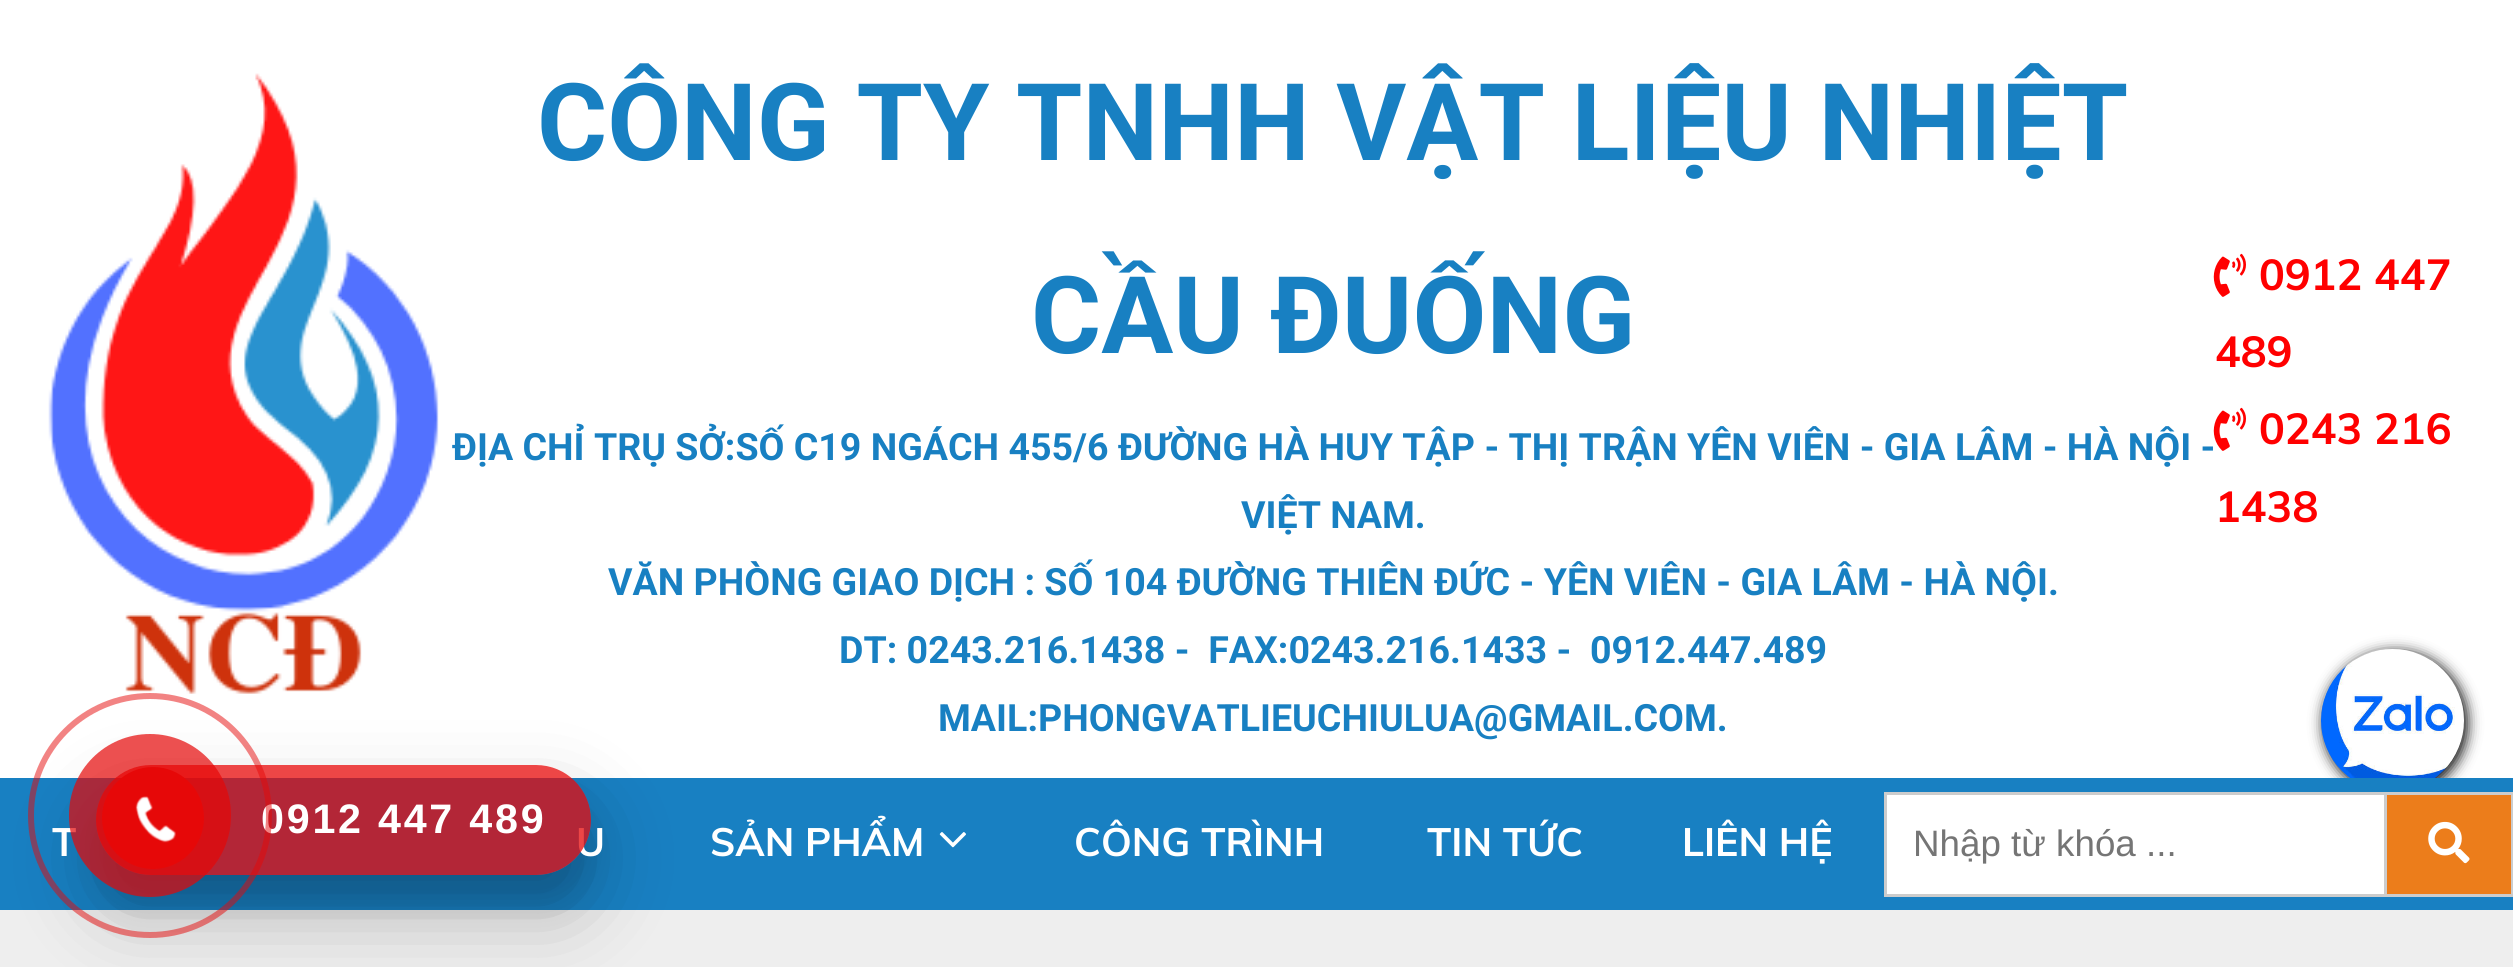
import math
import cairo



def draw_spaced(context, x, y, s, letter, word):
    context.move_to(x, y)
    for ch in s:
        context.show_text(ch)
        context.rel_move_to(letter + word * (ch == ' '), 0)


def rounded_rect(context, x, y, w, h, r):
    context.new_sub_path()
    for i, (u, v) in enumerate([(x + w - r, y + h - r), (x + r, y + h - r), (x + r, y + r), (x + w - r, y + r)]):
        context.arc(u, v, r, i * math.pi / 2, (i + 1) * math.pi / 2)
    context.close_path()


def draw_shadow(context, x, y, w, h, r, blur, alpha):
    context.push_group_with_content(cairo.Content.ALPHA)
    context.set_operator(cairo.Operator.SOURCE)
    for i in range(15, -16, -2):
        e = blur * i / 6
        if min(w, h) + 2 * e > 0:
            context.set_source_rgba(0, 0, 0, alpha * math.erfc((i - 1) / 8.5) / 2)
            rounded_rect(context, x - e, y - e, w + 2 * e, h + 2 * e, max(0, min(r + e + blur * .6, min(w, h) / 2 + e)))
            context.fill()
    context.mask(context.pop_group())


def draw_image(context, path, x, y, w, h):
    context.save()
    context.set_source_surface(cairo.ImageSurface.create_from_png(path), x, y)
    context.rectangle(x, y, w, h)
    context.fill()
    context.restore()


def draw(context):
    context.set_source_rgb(1, 1, 1)
    context.paint()
    draw_image(context, "images/1.png", 48, 73, 391, 621)
    draw_image(context, "images/2.png", 2213, 253, 33, 44)
    draw_image(context, "images/2.png", 2213, 407, 33, 44)
    context.set_source_rgb(0, 0, 0)
    draw_shadow(context, 2324, 652, 143, 143, 71.5, 7, 1)
    context.set_source_rgb(24 / 255, 128 / 255, 194 / 255)
    context.rectangle(0, 778, 2513, 132)
    context.fill()
    draw_image(context, "images/3.png", 939, 832, 27, 16)
    context.set_source_rgb(1, 1, 1)
    context.rectangle(1885.5, 793.5, 500, 102)
    context.fill_preserve()
    context.set_source_rgb(204 / 255, 204 / 255, 204 / 255)
    context.set_line_width(3)
    context.stroke()
    context.set_source_rgb(236 / 255, 125 / 255, 27 / 255)
    context.rectangle(2387, 795, 124, 99)
    context.fill()
    context.set_source_rgb(204 / 255, 204 / 255, 204 / 255)
    context.rectangle(2387, 792, 126, 3)
    context.fill()
    context.rectangle(2511, 792, 2, 105)
    context.fill()
    context.rectangle(2387, 894, 126, 3)
    context.fill()
    draw_image(context, "images/4.png", 2428, 821, 42, 43)
    context.set_source_rgb(238 / 255, 238 / 255, 238 / 255)
    context.rectangle(0, 910, 2513, 57)
    context.fill()
    context.save()
    context.set_fill_rule(cairo.FillRule.EVEN_ODD)
    context.new_path()
    context.move_to(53, 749)
    context.line_to(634, 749)
    context.line_to(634, 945)
    context.line_to(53, 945)
    context.close_path()
    context.move_to(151, 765)
    context.line_to(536, 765)
    context.curve_to(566.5, 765, 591, 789.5, 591, 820)
    context.curve_to(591, 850.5, 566.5, 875, 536, 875)
    context.line_to(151, 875)
    context.curve_to(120.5, 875, 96, 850.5, 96, 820)
    context.curve_to(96, 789.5, 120.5, 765, 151, 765)
    context.close_path()
    context.clip()
    context.set_source_rgb(0, 0, 0)
    draw_shadow(context, 96, 792, 495, 110, 55, 14, 0.1)
    context.restore()
    context.save()
    context.set_fill_rule(cairo.FillRule.EVEN_ODD)
    context.new_path()
    context.move_to(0, 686)
    context.line_to(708, 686)
    context.line_to(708, 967)
    context.line_to(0, 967)
    context.close_path()
    context.move_to(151, 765)
    context.line_to(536, 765)
    context.curve_to(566.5, 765, 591, 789.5, 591, 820)
    context.curve_to(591, 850.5, 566.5, 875, 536, 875)
    context.line_to(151, 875)
    context.curve_to(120.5, 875, 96, 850.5, 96, 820)
    context.curve_to(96, 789.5, 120.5, 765, 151, 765)
    context.close_path()
    context.clip()
    context.set_source_rgb(0, 0, 0)
    draw_shadow(context, 96, 803, 495, 110, 55, 38.5, 0.25)
    context.restore()
    draw_image(context, "images/6.png", 2321, 649, 143, 129)
    context.select_font_face("Roboto", cairo.FontSlant.NORMAL, cairo.FontWeight.BOLD)
    context.set_font_size(107.25)
    context.set_source_rgb(24 / 255, 128 / 255, 194 / 255)
    context.move_to(537, 160)
    context.show_text("CÔNG TY TNHH VẬT LIỆU NHIỆT")
    context.move_to(1031, 353)
    context.show_text("CẦU ĐUỐNG")
    context.set_font_size(37.55)
    context.move_to(452, 460)
    context.show_text("ĐỊA CHỈ TRỤ SỞ:SỐ C19 NGÁCH 455/6 ĐƯỜNG HÀ HUY TẬP - THỊ TRẬN YÊN VIÊN - GIA LÂM - HÀ NỘI -")
    context.move_to(1241, 528)
    context.show_text("VIỆT NAM.")
    context.move_to(608, 595)
    context.show_text("VĂN PHÒNG GIAO DỊCH : SỐ 104 ĐƯỜNG THIÊN ĐỨC - YÊN VIÊN - GIA LÂM - HÀ NỘI.")
    context.move_to(839, 663)
    context.show_text("DT: 0243.216.1438 -  FAX:0243.216.1433 -  0912.447.489")
    context.move_to(938, 731)
    context.show_text("MAIL:PHONGVATLIEUCHIULUA@GMAIL.COM.")
    context.select_font_face("Muli", cairo.FontSlant.NORMAL, cairo.FontWeight.BOLD)
    context.set_font_size(43)
    context.set_source_rgb(1, 0, 0)
    context.move_to(2259, 290)
    context.show_text("0912 447")
    context.move_to(2215, 367)
    context.show_text("489")
    context.move_to(2259, 444)
    context.show_text("0243 216")
    context.move_to(2215, 522)
    context.show_text("1438")
    context.set_font_size(39.25)
    context.set_source_rgb(1, 1, 1)
    context.move_to(52, 856)
    context.show_text("T")
    context.move_to(576, 856)
    context.show_text("U")
    context.move_to(710, 856)
    context.show_text("SẢN PHẨM")
    context.move_to(1074, 856)
    context.show_text("CÔNG TRÌNH")
    context.move_to(1427, 856)
    context.show_text("TIN TỨC")
    context.move_to(1682, 856)
    context.show_text("LIÊN HỆ")
    context.select_font_face("Liberation Sans")
    context.set_font_size(36.75)
    context.set_source_rgb(117 / 255, 117 / 255, 117 / 255)
    context.move_to(1913, 856)
    context.show_text("Nhập từ khóa ...")
    context.set_source_rgba(230 / 255, 8 / 255, 8 / 255, 0.75)
    rounded_rect(context, 96, 765, 495, 110, 55)
    context.fill()
    context.select_font_face("Liberation Sans", cairo.FontSlant.NORMAL, cairo.FontWeight.BOLD)
    context.set_font_size(41.25)
    context.set_source_rgb(1, 1, 1)
    draw_spaced(context, 261, 833, "0912 447 489", 2.75, 0)
    rounded_rect(context, 31, 696, 238, 239, 119)
    context.set_source_rgba(230 / 255, 8 / 255, 8 / 255, 0.5)
    context.set_line_width(6)
    context.stroke()
    context.set_source_rgba(230 / 255, 8 / 255, 8 / 255, 0.7)
    rounded_rect(context, 69, 734, 162, 163, 81)
    context.fill()
    context.set_source_rgb(230 / 255, 8 / 255, 8 / 255)
    context.arc(153, 818, 51, 0, 2 * math.pi)
    context.fill()
    draw_image(context, "images/5.png", 135, 796, 41, 47)


surface = cairo.ImageSurface(cairo.Format.RGB24, 2513, 967)
context = cairo.Context(surface)
options = cairo.FontOptions()
options.set_hint_metrics(cairo.HintMetrics.OFF)
options.set_hint_style(cairo.HintStyle.NONE)
context.set_font_options(options)
context.set_miter_limit(4)
draw(context)
surface.write_to_png("out.png")
